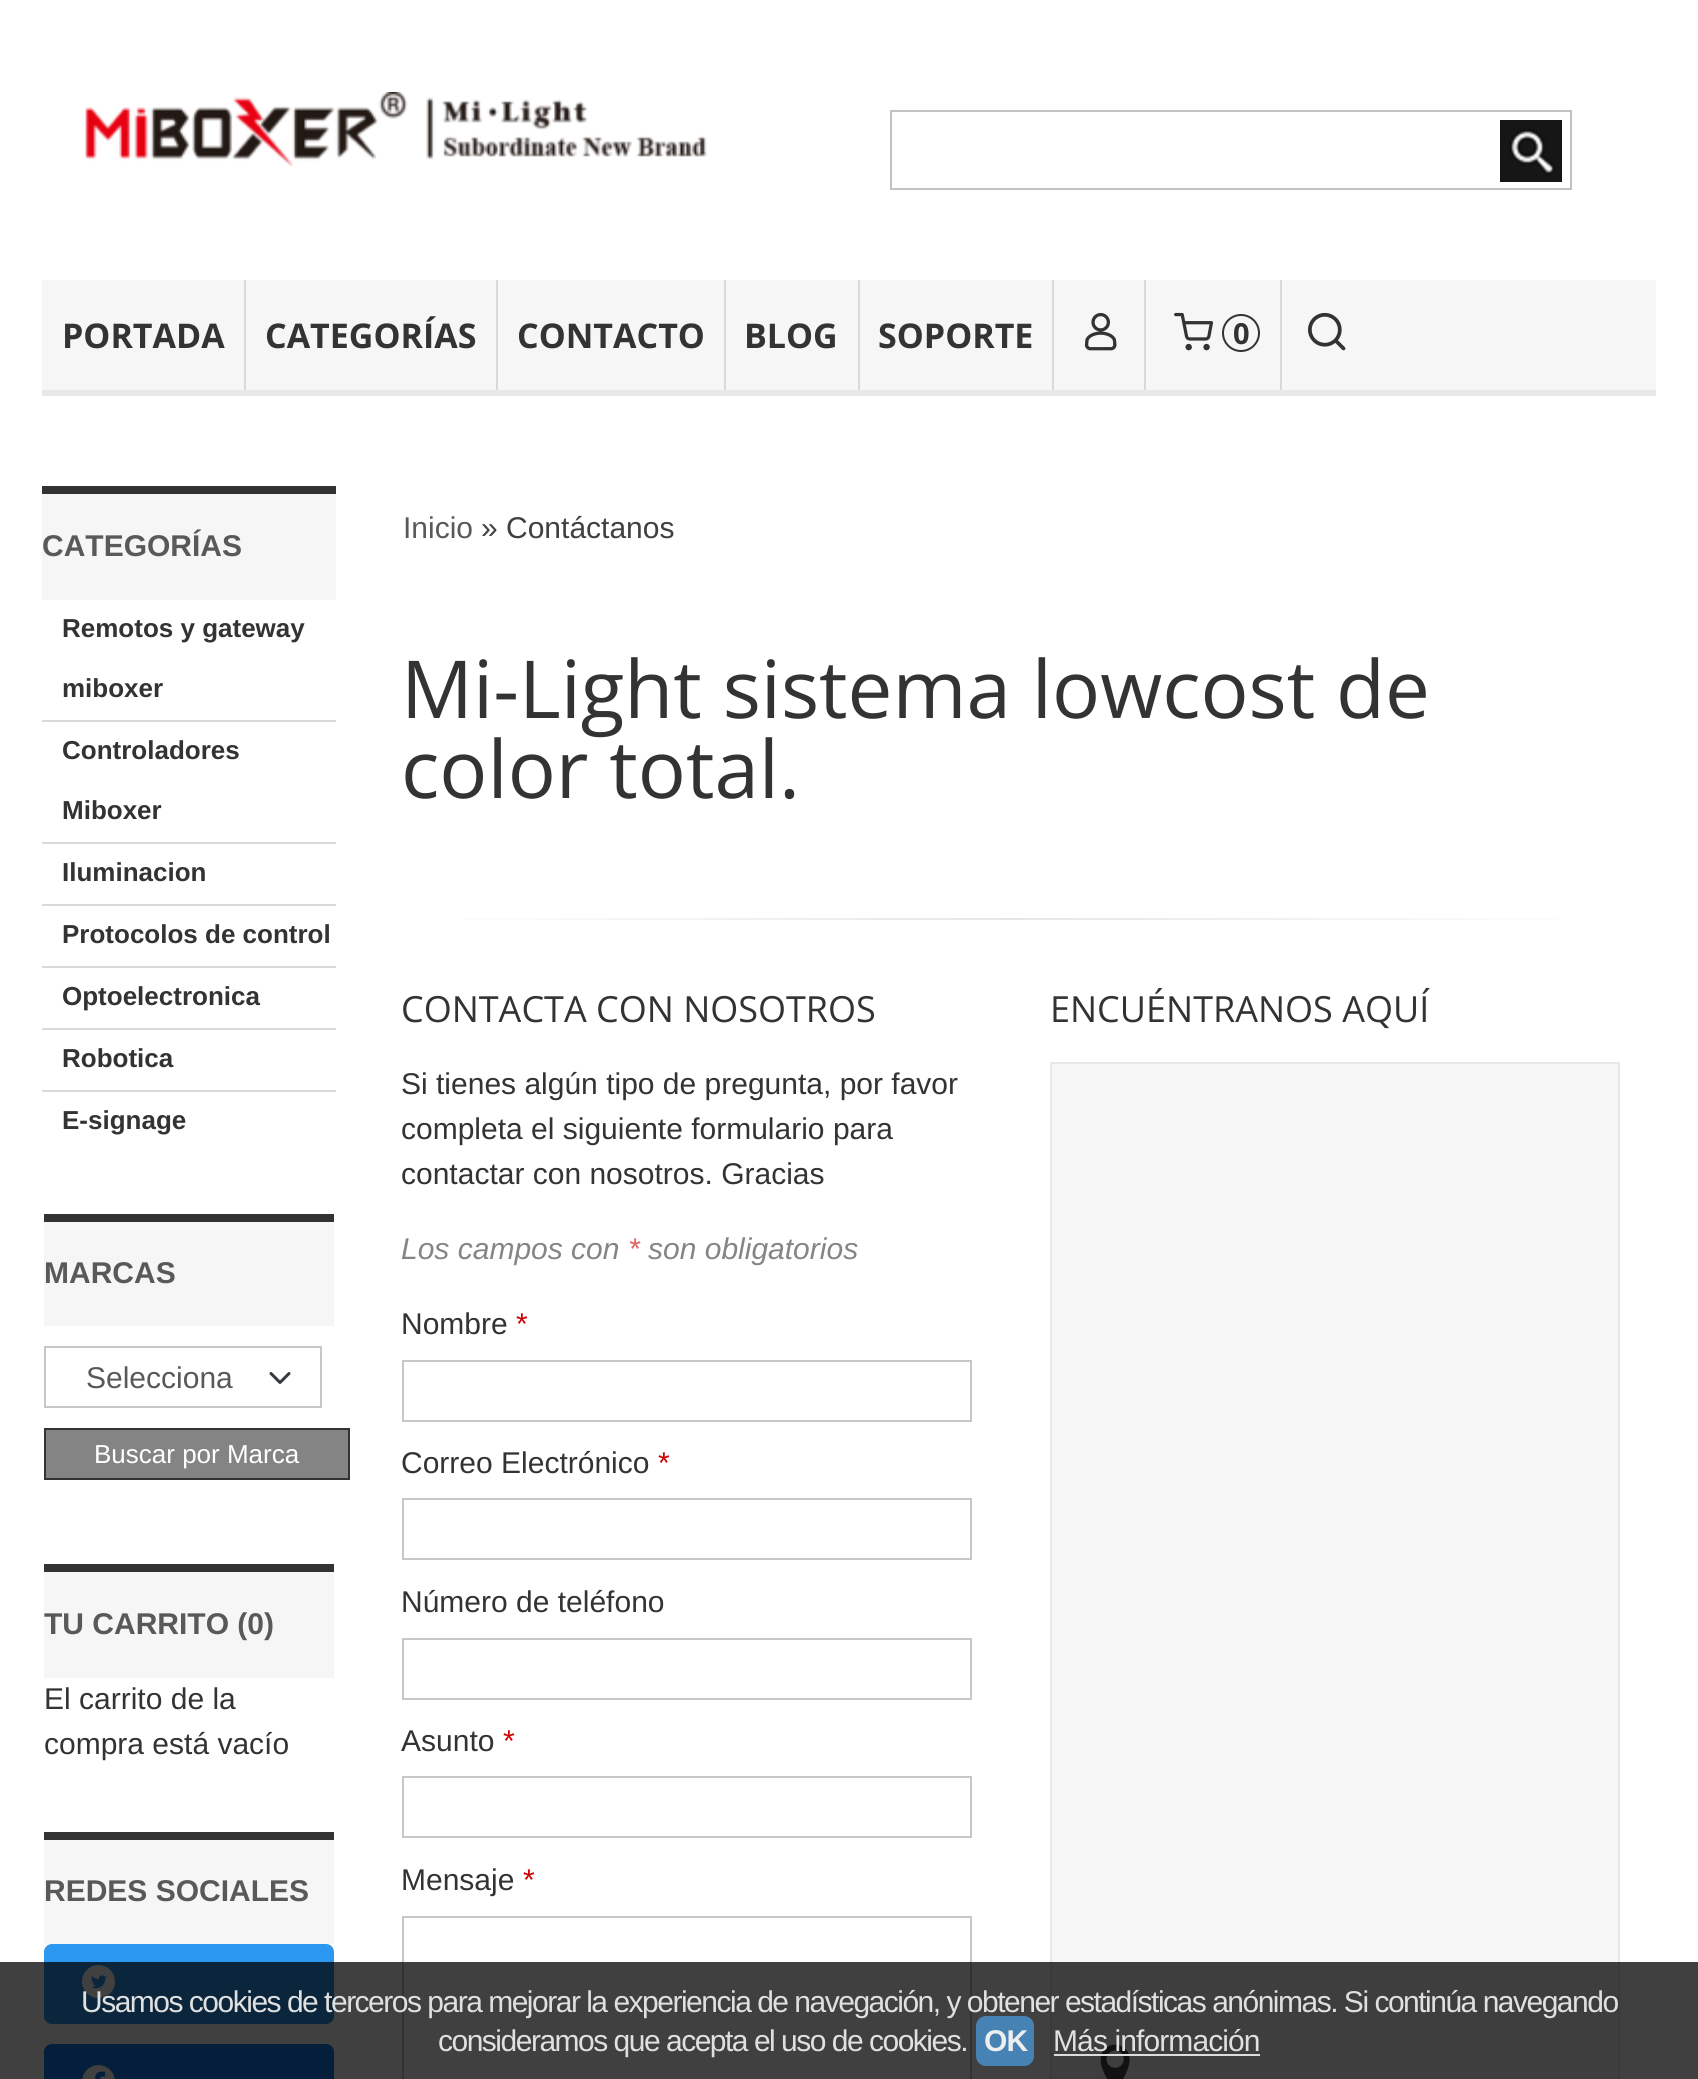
import math
import cairo



def draw_spaced(context, x, y, s, letter, word):
    context.move_to(x, y)
    for ch in s:
        context.show_text(ch)
        context.rel_move_to(letter + word * (ch == ' '), 0)


def rounded_rect(context, x, y, w, h, r):
    context.new_sub_path()
    for i, (u, v) in enumerate([(x + w - r, y + h - r), (x + r, y + h - r), (x + r, y + r), (x + w - r, y + r)]):
        context.arc(u, v, r, i * math.pi / 2, (i + 1) * math.pi / 2)
    context.close_path()


def draw_image(context, path, x, y, w, h):
    context.save()
    context.set_source_surface(cairo.ImageSurface.create_from_png(path), x, y)
    context.rectangle(x, y, w, h)
    context.fill()
    context.restore()


def draw(context):
    context.set_source_rgb(1, 1, 1)
    context.paint()
    draw_image(context, "images/1.png", 85, 92, 622, 74)
    context.rectangle(891, 111, 680, 78)
    context.set_source_rgb(194 / 255, 194 / 255, 194 / 255)
    context.stroke()
    draw_image(context, "images/2.png", 1500, 120, 62, 62)
    context.set_source_rgb(246 / 255, 246 / 255, 246 / 255)
    context.rectangle(42, 280, 1614, 110)
    context.fill()
    context.set_source_rgb(232 / 255, 232 / 255, 232 / 255)
    context.rectangle(42, 390, 1614, 6)
    context.fill()
    context.set_source_rgb(217 / 255, 217 / 255, 217 / 255)
    context.rectangle(244, 280, 2, 110)
    context.fill()
    context.rectangle(496, 280, 2, 110)
    context.fill()
    context.rectangle(724, 280, 2, 110)
    context.fill()
    context.rectangle(858, 280, 2, 110)
    context.fill()
    context.rectangle(1052, 280, 2, 110)
    context.fill()
    draw_image(context, "images/3.png", 1084, 312, 33, 39)
    context.rectangle(1144, 280, 2, 110)
    context.fill()
    draw_image(context, "images/4.png", 1174, 312, 40, 39)
    context.arc(1241, 333, 18, 0, 2 * math.pi)
    context.set_source_rgb(51 / 255, 51 / 255, 51 / 255)
    context.stroke()
    context.set_source_rgb(217 / 255, 217 / 255, 217 / 255)
    context.rectangle(1280, 280, 2, 110)
    context.fill()
    draw_image(context, "images/5.png", 1308, 312, 38, 39)
    context.set_source_rgb(246 / 255, 246 / 255, 246 / 255)
    context.rectangle(42, 494, 294, 106)
    context.fill()
    context.set_source_rgb(51 / 255, 51 / 255, 51 / 255)
    context.rectangle(42, 486, 294, 8)
    context.fill()
    context.set_source_rgb(217 / 255, 217 / 255, 217 / 255)
    context.rectangle(42, 720, 294, 2)
    context.fill()
    context.rectangle(42, 842, 294, 2)
    context.fill()
    context.rectangle(42, 904, 294, 2)
    context.fill()
    context.rectangle(42, 966, 294, 2)
    context.fill()
    context.rectangle(42, 1028, 294, 2)
    context.fill()
    context.rectangle(42, 1090, 294, 2)
    context.fill()
    context.set_source_rgb(246 / 255, 246 / 255, 246 / 255)
    context.rectangle(44, 1222, 290, 104)
    context.fill()
    context.set_source_rgb(51 / 255, 51 / 255, 51 / 255)
    context.rectangle(44, 1214, 290, 8)
    context.fill()
    context.new_path()
    context.move_to(271, 1373.5)
    context.line_to(280, 1382.5)
    context.line_to(289, 1373.5)
    context.set_source_rgb(52 / 255, 58 / 255, 64 / 255)
    context.set_line_width(3)
    context.set_line_cap(cairo.LineCap.ROUND)
    context.set_line_join(cairo.LineJoin.ROUND)
    context.stroke()
    context.rectangle(45, 1347, 276, 60)
    context.set_source_rgb(199 / 255, 199 / 255, 199 / 255)
    context.set_line_width(2)
    context.set_line_cap(cairo.LineCap.BUTT)
    context.set_line_join(cairo.LineJoin.MITER)
    context.stroke()
    context.set_source_rgb(132 / 255, 132 / 255, 132 / 255)
    context.rectangle(45, 1429, 304, 50)
    context.fill_preserve()
    context.set_source_rgb(51 / 255, 51 / 255, 51 / 255)
    context.stroke()
    context.set_source_rgb(246 / 255, 246 / 255, 246 / 255)
    context.rectangle(44, 1572, 290, 106)
    context.fill()
    context.set_source_rgb(51 / 255, 51 / 255, 51 / 255)
    context.rectangle(44, 1564, 290, 8)
    context.fill()
    context.set_source_rgb(246 / 255, 246 / 255, 246 / 255)
    context.rectangle(44, 1840, 290, 104)
    context.fill()
    context.set_source_rgb(51 / 255, 51 / 255, 51 / 255)
    context.rectangle(44, 1832, 290, 8)
    context.fill()
    context.set_source_rgb(43 / 255, 151 / 255, 241 / 255)
    rounded_rect(context, 44, 1944, 290, 80, 8)
    context.fill()
    draw_image(context, "images/6.png", 82, 1965, 33, 34)
    context.set_source_rgb(20 / 255, 120 / 255, 235 / 255)
    rounded_rect(context, 44, 2044, 290, 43, 8)
    context.fill()
    draw_image(context, "images/7.png", 82, 2065, 33, 14)
    gradient = cairo.LinearGradient(402, 919, 1620, 919)
    gradient.add_color_stop_rgba(0, 1, 1, 1, 1)
    gradient.add_color_stop_rgba(0.5, 230 / 255, 230 / 255, 230 / 255, 1)
    gradient.add_color_stop_rgba(1, 1, 1, 1, 1)
    context.set_source(gradient)
    context.rectangle(463, 918, 1096, 2)
    context.fill()
    context.rectangle(403, 1361, 568, 60)
    context.set_source_rgb(199 / 255, 199 / 255, 199 / 255)
    context.stroke()
    context.rectangle(403, 1499, 568, 60)
    context.stroke()
    context.rectangle(403, 1639, 568, 60)
    context.stroke()
    context.rectangle(403, 1777, 568, 60)
    context.stroke()
    context.rectangle(403, 1917, 568, 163)
    context.stroke()
    context.set_source_rgb(247 / 255, 247 / 255, 247 / 255)
    context.rectangle(1051, 1063, 568, 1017)
    context.fill_preserve()
    context.set_source_rgb(232 / 255, 232 / 255, 232 / 255)
    context.stroke()
    draw_image(context, "images/8.png", 1100, 2044, 30, 35)
    context.set_source_rgba(0, 0, 0, 0.75)
    context.rectangle(0, 1962, 1698, 117)
    context.fill()
    context.set_source_rgb(221 / 255, 221 / 255, 221 / 255)
    context.rectangle(1054, 2054, 206, 2)
    context.fill()
    context.select_font_face("Open Sans", cairo.FontSlant.NORMAL, cairo.FontWeight.BOLD)
    context.set_font_size(34)
    context.set_source_rgb(51 / 255, 51 / 255, 51 / 255)
    context.move_to(62, 348)
    context.show_text("PORTADA")
    context.move_to(265, 348)
    context.show_text("CATEGORÍAS")
    context.move_to(517, 348)
    context.show_text("CONTACTO")
    context.move_to(744, 348)
    context.show_text("BLOG")
    context.move_to(878, 348)
    context.show_text("SOPORTE")
    context.set_font_size(29)
    context.move_to(1233, 344)
    context.show_text("0")
    context.select_font_face("Liberation Sans", cairo.FontSlant.NORMAL, cairo.FontWeight.BOLD)
    context.set_font_size(30)
    context.set_source_rgb(89 / 255, 89 / 255, 89 / 255)
    context.move_to(42, 556)
    context.show_text("CATEGORÍAS")
    context.set_font_size(26)
    context.set_source_rgb(51 / 255, 51 / 255, 51 / 255)
    context.move_to(62, 637)
    context.show_text("Remotos y gateway")
    context.move_to(62, 697)
    context.show_text("miboxer")
    context.move_to(62, 759)
    context.show_text("Controladores")
    context.move_to(62, 819)
    context.show_text("Miboxer")
    context.move_to(62, 881)
    context.show_text("Iluminacion")
    context.move_to(62, 943)
    context.show_text("Protocolos de control")
    context.move_to(62, 1005)
    context.show_text("Optoelectronica")
    context.move_to(62, 1067)
    context.show_text("Robotica")
    context.move_to(62, 1129)
    context.show_text("E-signage")
    context.set_font_size(30)
    context.set_source_rgb(89 / 255, 89 / 255, 89 / 255)
    context.move_to(44, 1283)
    context.show_text("MARCAS")
    context.select_font_face("Liberation Sans")
    context.move_to(86, 1388)
    context.show_text("Selecciona")
    context.set_font_size(26)
    context.set_source_rgb(1, 1, 1)
    context.move_to(94, 1463)
    context.show_text("Buscar por Marca")
    context.select_font_face("Liberation Sans", cairo.FontSlant.NORMAL, cairo.FontWeight.BOLD)
    context.set_font_size(30)
    context.set_source_rgb(89 / 255, 89 / 255, 89 / 255)
    context.move_to(44, 1634)
    context.show_text("TU CARRITO (0)")
    context.select_font_face("Liberation Sans")
    context.set_source_rgb(51 / 255, 51 / 255, 51 / 255)
    context.move_to(44, 1709)
    context.show_text("El carrito de la")
    context.move_to(44, 1754)
    context.show_text("compra está vacío")
    context.select_font_face("Liberation Sans", cairo.FontSlant.NORMAL, cairo.FontWeight.BOLD)
    context.set_source_rgb(89 / 255, 89 / 255, 89 / 255)
    context.move_to(44, 1901)
    context.show_text("REDES SOCIALES")
    context.select_font_face("Liberation Sans")
    context.move_to(403, 538)
    context.show_text("Inicio")
    context.set_source_rgb(64 / 255, 64 / 255, 64 / 255)
    context.move_to(481, 538)
    context.show_text("» Contáctanos")
    context.select_font_face("Open Sans")
    context.set_font_size(80)
    context.set_source_rgb(51 / 255, 51 / 255, 51 / 255)
    context.move_to(401, 718)
    context.show_text("Mi-Light sistema lowcost de")
    context.move_to(401, 798)
    context.show_text("color total.")
    context.set_font_size(36)
    context.move_to(401, 1022)
    context.show_text("CONTACTA CON NOSOTROS")
    context.select_font_face("Liberation Sans")
    context.set_font_size(30)
    context.move_to(401, 1094)
    context.show_text("Si tienes algún tipo de pregunta, por favor")
    context.move_to(401, 1139)
    context.show_text("completa el siguiente formulario para")
    context.move_to(401, 1184)
    context.show_text("contactar con nosotros. Gracias")
    context.select_font_face("Liberation Sans", cairo.FontSlant.ITALIC)
    context.set_source_rgb(133 / 255, 133 / 255, 133 / 255)
    context.move_to(401, 1259)
    context.show_text("Los campos con")
    context.set_source_rgb(224 / 255, 102 / 255, 102 / 255)
    context.move_to(628, 1259)
    context.show_text("*")
    context.set_source_rgb(133 / 255, 133 / 255, 133 / 255)
    context.move_to(648, 1259)
    context.show_text("son obligatorios")
    context.select_font_face("Liberation Sans")
    context.set_source_rgb(51 / 255, 51 / 255, 51 / 255)
    context.move_to(401, 1334)
    context.show_text("Nombre")
    context.set_source_rgb(204 / 255, 0, 0)
    context.move_to(516, 1334)
    context.show_text("*")
    context.set_source_rgb(51 / 255, 51 / 255, 51 / 255)
    context.move_to(401, 1473)
    context.show_text("Correo Electrónico")
    context.set_source_rgb(204 / 255, 0, 0)
    context.move_to(658, 1473)
    context.show_text("*")
    context.set_source_rgb(51 / 255, 51 / 255, 51 / 255)
    context.move_to(401, 1612)
    context.show_text("Número de teléfono")
    context.move_to(401, 1751)
    context.show_text("Asunto")
    context.set_source_rgb(204 / 255, 0, 0)
    context.move_to(503, 1751)
    context.show_text("*")
    context.set_source_rgb(51 / 255, 51 / 255, 51 / 255)
    context.move_to(401, 1890)
    context.show_text("Mensaje")
    context.set_source_rgb(204 / 255, 0, 0)
    context.move_to(523, 1890)
    context.show_text("*")
    context.select_font_face("Open Sans")
    context.set_font_size(36)
    context.set_source_rgb(51 / 255, 51 / 255, 51 / 255)
    context.move_to(1050, 1022)
    context.show_text("ENCUÉNTRANOS AQUÍ")
    context.select_font_face("Liberation Sans")
    context.set_font_size(30)
    context.set_source_rgb(224 / 255, 224 / 255, 224 / 255)
    draw_spaced(context, 81, 2012, "Usamos cookies de terceros para mejorar la experiencia de navegación, y obtener estadísticas anónimas. Si continúa navegando", -1.5, 0)
    draw_spaced(context, 438, 2051, "consideramos que acepta el uso de cookies.", -1.5, 0)
    context.set_source_rgb(70 / 255, 130 / 255, 180 / 255)
    rounded_rect(context, 976, 2016, 58, 50, 10)
    context.fill()
    context.select_font_face("Liberation Sans", cairo.FontSlant.NORMAL, cairo.FontWeight.BOLD)
    context.set_source_rgb(238 / 255, 238 / 255, 238 / 255)
    draw_spaced(context, 984, 2051, "OK", -0.9, 0)
    context.select_font_face("Liberation Sans")
    context.set_source_rgb(224 / 255, 224 / 255, 224 / 255)
    draw_spaced(context, 1053, 2051, "Más información", -0.9, 0)


surface = cairo.ImageSurface(cairo.Format.RGB24, 1698, 2079)
context = cairo.Context(surface)
options = cairo.FontOptions()
options.set_hint_metrics(cairo.HintMetrics.OFF)
options.set_hint_style(cairo.HintStyle.NONE)
context.set_font_options(options)
context.set_miter_limit(4)
draw(context)
surface.write_to_png("out.png")
